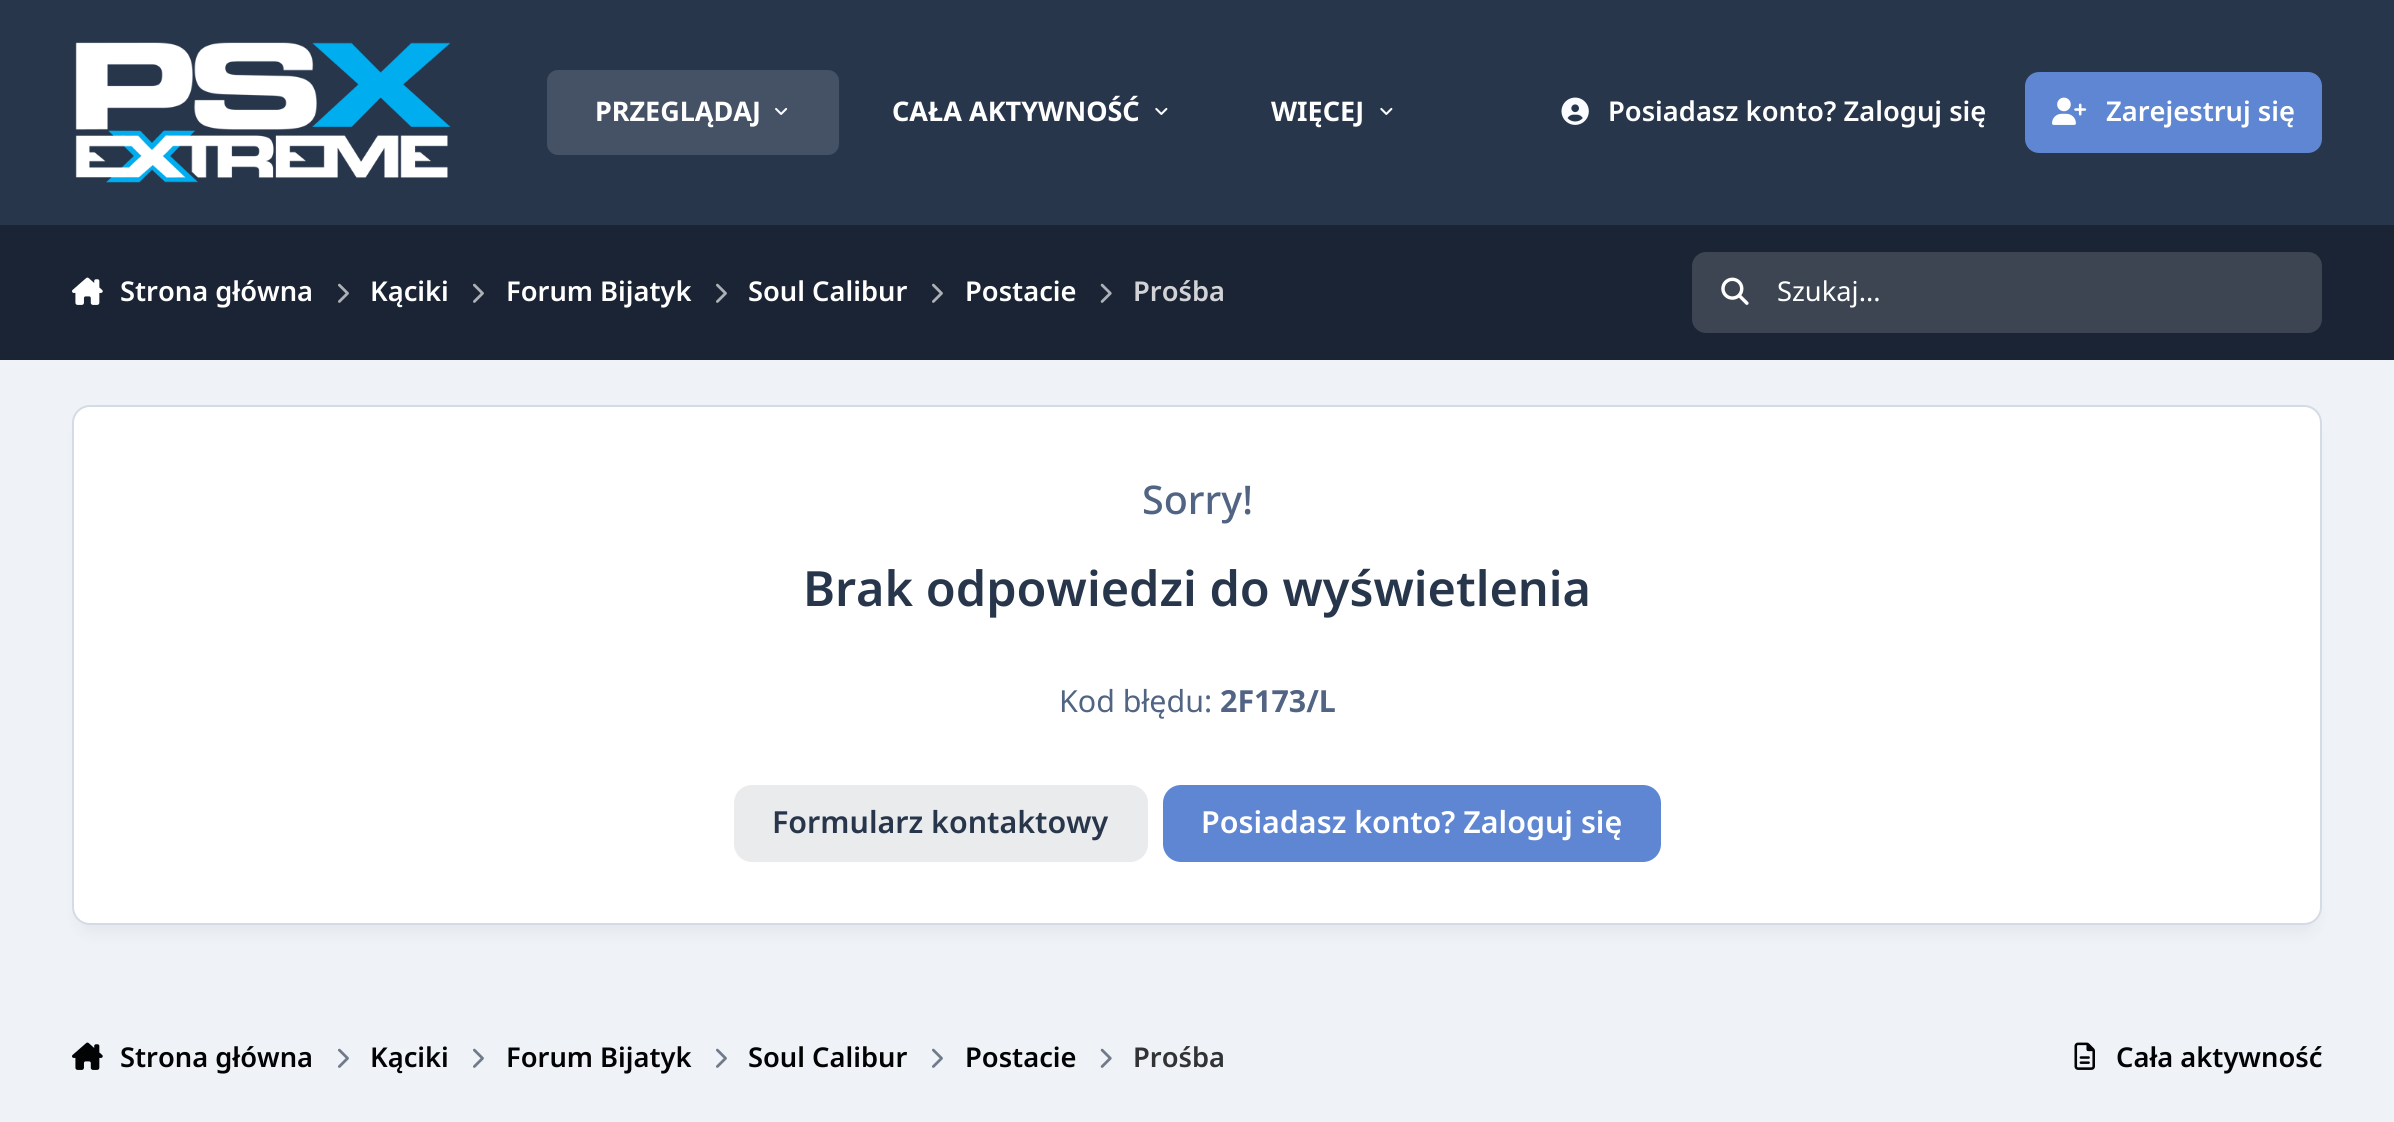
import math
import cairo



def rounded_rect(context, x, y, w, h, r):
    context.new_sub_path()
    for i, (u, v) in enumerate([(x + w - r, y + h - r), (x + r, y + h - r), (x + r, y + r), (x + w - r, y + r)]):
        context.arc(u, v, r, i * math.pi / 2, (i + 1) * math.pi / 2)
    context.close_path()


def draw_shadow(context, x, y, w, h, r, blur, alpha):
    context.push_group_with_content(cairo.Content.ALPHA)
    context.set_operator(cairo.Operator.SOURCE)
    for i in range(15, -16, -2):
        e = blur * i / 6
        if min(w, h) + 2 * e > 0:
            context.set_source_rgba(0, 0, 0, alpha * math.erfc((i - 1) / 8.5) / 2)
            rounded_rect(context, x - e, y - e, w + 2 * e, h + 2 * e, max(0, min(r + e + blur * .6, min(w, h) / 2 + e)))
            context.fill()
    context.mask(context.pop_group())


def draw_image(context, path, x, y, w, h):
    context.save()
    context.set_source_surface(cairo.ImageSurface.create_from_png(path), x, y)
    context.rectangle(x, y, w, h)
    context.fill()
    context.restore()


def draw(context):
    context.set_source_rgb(239 / 255, 242 / 255, 247 / 255)
    context.paint()
    context.set_source_rgb(40 / 255, 54 / 255, 76 / 255)
    context.rectangle(0, 0, 2394, 225)
    context.fill()
    draw_image(context, "images/1.png", 75, 42, 376, 141)
    context.set_source_rgb(69 / 255, 82 / 255, 101 / 255)
    rounded_rect(context, 547, 70, 292, 85, 11)
    context.fill()
    draw_image(context, "images/2.png", 775, 107, 13, 8)
    draw_image(context, "images/3.png", 1155, 107, 13, 8)
    draw_image(context, "images/3.png", 1380, 107, 13, 8)
    draw_image(context, "images/4.png", 1561, 97, 28, 28)
    context.set_source_rgb(95 / 255, 134 / 255, 211 / 255)
    rounded_rect(context, 2025, 72, 297, 81, 14)
    context.fill()
    draw_image(context, "images/5.png", 2052, 97, 35, 28)
    context.set_source_rgb(27 / 255, 36 / 255, 52 / 255)
    context.rectangle(0, 225, 2394, 135)
    context.fill()
    draw_image(context, "images/6.png", 72, 277, 31, 28)
    draw_image(context, "images/7.png", 338, 283, 11, 20)
    draw_image(context, "images/7.png", 473, 283, 11, 20)
    draw_image(context, "images/7.png", 716, 283, 11, 20)
    draw_image(context, "images/7.png", 932, 283, 11, 20)
    draw_image(context, "images/8.png", 1100, 283, 12, 20)
    context.set_source_rgb(61 / 255, 69 / 255, 82 / 255)
    rounded_rect(context, 1692, 252, 630, 81, 14)
    context.fill()
    draw_image(context, "images/9.png", 1721, 277, 28, 28)
    context.set_source_rgb(1 / 255, 3 / 255, 10 / 255)
    draw_shadow(context, 79, 425, 2236, 507, 11, 8, 0.05)
    context.set_source_rgb(1, 1, 1)
    rounded_rect(context, 73, 406, 2248, 518, 17)
    context.fill_preserve()
    context.set_source_rgb(213 / 255, 219 / 255, 230 / 255)
    context.stroke()
    context.set_source_rgb(234 / 255, 235 / 255, 237 / 255)
    rounded_rect(context, 734, 785, 414, 77, 18)
    context.fill()
    context.set_source_rgb(95 / 255, 134 / 255, 211 / 255)
    rounded_rect(context, 1163, 785, 498, 77, 18)
    context.fill()
    draw_image(context, "images/10.png", 72, 1042, 31, 28)
    draw_image(context, "images/11.png", 338, 1048, 11, 20)
    draw_image(context, "images/11.png", 473, 1048, 11, 20)
    draw_image(context, "images/11.png", 716, 1048, 11, 20)
    draw_image(context, "images/11.png", 932, 1048, 11, 20)
    draw_image(context, "images/12.png", 1100, 1048, 12, 20)
    draw_image(context, "images/13.png", 2074, 1042, 21, 28)
    context.select_font_face("Noto Sans", cairo.FontSlant.NORMAL, cairo.FontWeight.BOLD)
    context.set_font_size(27)
    context.set_source_rgb(1, 1, 1)
    context.move_to(595, 121)
    context.show_text("PRZEGLĄDAJ")
    context.move_to(892, 121)
    context.show_text("CAŁA AKTYWNOŚĆ")
    context.move_to(1271, 121)
    context.show_text("WIĘCEJ")
    context.select_font_face("Noto Sans SemiBold")
    context.set_font_size(27.3)
    context.move_to(1608, 121)
    context.show_text("Posiadasz konto? Zaloguj się")
    context.move_to(2106, 121)
    context.show_text("Zarejestruj się")
    context.move_to(120, 301)
    context.show_text("Strona główna")
    context.move_to(370, 301)
    context.show_text("Kąciki")
    context.move_to(506, 301)
    context.show_text("Forum Bijatyk")
    context.move_to(748, 301)
    context.show_text("Soul Calibur")
    context.move_to(965, 301)
    context.show_text("Postacie")
    context.set_source_rgb(209 / 255, 211 / 255, 214 / 255)
    context.move_to(1133, 301)
    context.show_text("Prośba")
    context.select_font_face("Noto Sans")
    context.set_source_rgb(1, 1, 1)
    context.move_to(1777, 301)
    context.show_text("Szukaj...")
    context.select_font_face("Noto Sans Medium")
    context.set_font_size(39.5)
    context.set_source_rgb(81 / 255, 100 / 255, 131 / 255)
    context.move_to(1142, 514)
    context.show_text("Sorry!")
    context.select_font_face("Noto Sans SemiBold")
    context.set_font_size(48.6)
    context.set_source_rgb(40 / 255, 54 / 255, 76 / 255)
    context.move_to(803, 606)
    context.show_text("Brak odpowiedzi do wyświetlenia")
    context.select_font_face("Noto Sans")
    context.set_font_size(30.4)
    context.set_source_rgb(81 / 255, 100 / 255, 131 / 255)
    context.move_to(1059, 712)
    context.show_text("Kod błędu:")
    context.select_font_face("Noto Sans", cairo.FontSlant.NORMAL, cairo.FontWeight.BOLD)
    context.move_to(1220, 712)
    context.show_text("2F173/L")
    context.select_font_face("Noto Sans SemiBold")
    context.set_source_rgb(40 / 255, 54 / 255, 76 / 255)
    context.move_to(772, 833)
    context.show_text("Formularz kontaktowy")
    context.set_source_rgb(1, 1, 1)
    context.move_to(1201, 833)
    context.show_text("Posiadasz konto? Zaloguj się")
    context.set_font_size(27.3)
    context.set_source_rgb(2 / 255, 3 / 255, 5 / 255)
    context.move_to(120, 1067)
    context.show_text("Strona główna")
    context.move_to(370, 1067)
    context.show_text("Kąciki")
    context.move_to(506, 1067)
    context.show_text("Forum Bijatyk")
    context.move_to(748, 1067)
    context.show_text("Soul Calibur")
    context.move_to(965, 1067)
    context.show_text("Postacie")
    context.set_source_rgb(49 / 255, 51 / 255, 53 / 255)
    context.move_to(1133, 1067)
    context.show_text("Prośba")
    context.set_source_rgb(2 / 255, 3 / 255, 5 / 255)
    context.move_to(2116, 1067)
    context.show_text("Cała aktywność")


surface = cairo.ImageSurface(cairo.Format.RGB24, 2394, 1122)
context = cairo.Context(surface)
options = cairo.FontOptions()
options.set_hint_metrics(cairo.HintMetrics.OFF)
options.set_hint_style(cairo.HintStyle.NONE)
context.set_font_options(options)
context.set_miter_limit(4)
draw(context)
surface.write_to_png("out.png")
